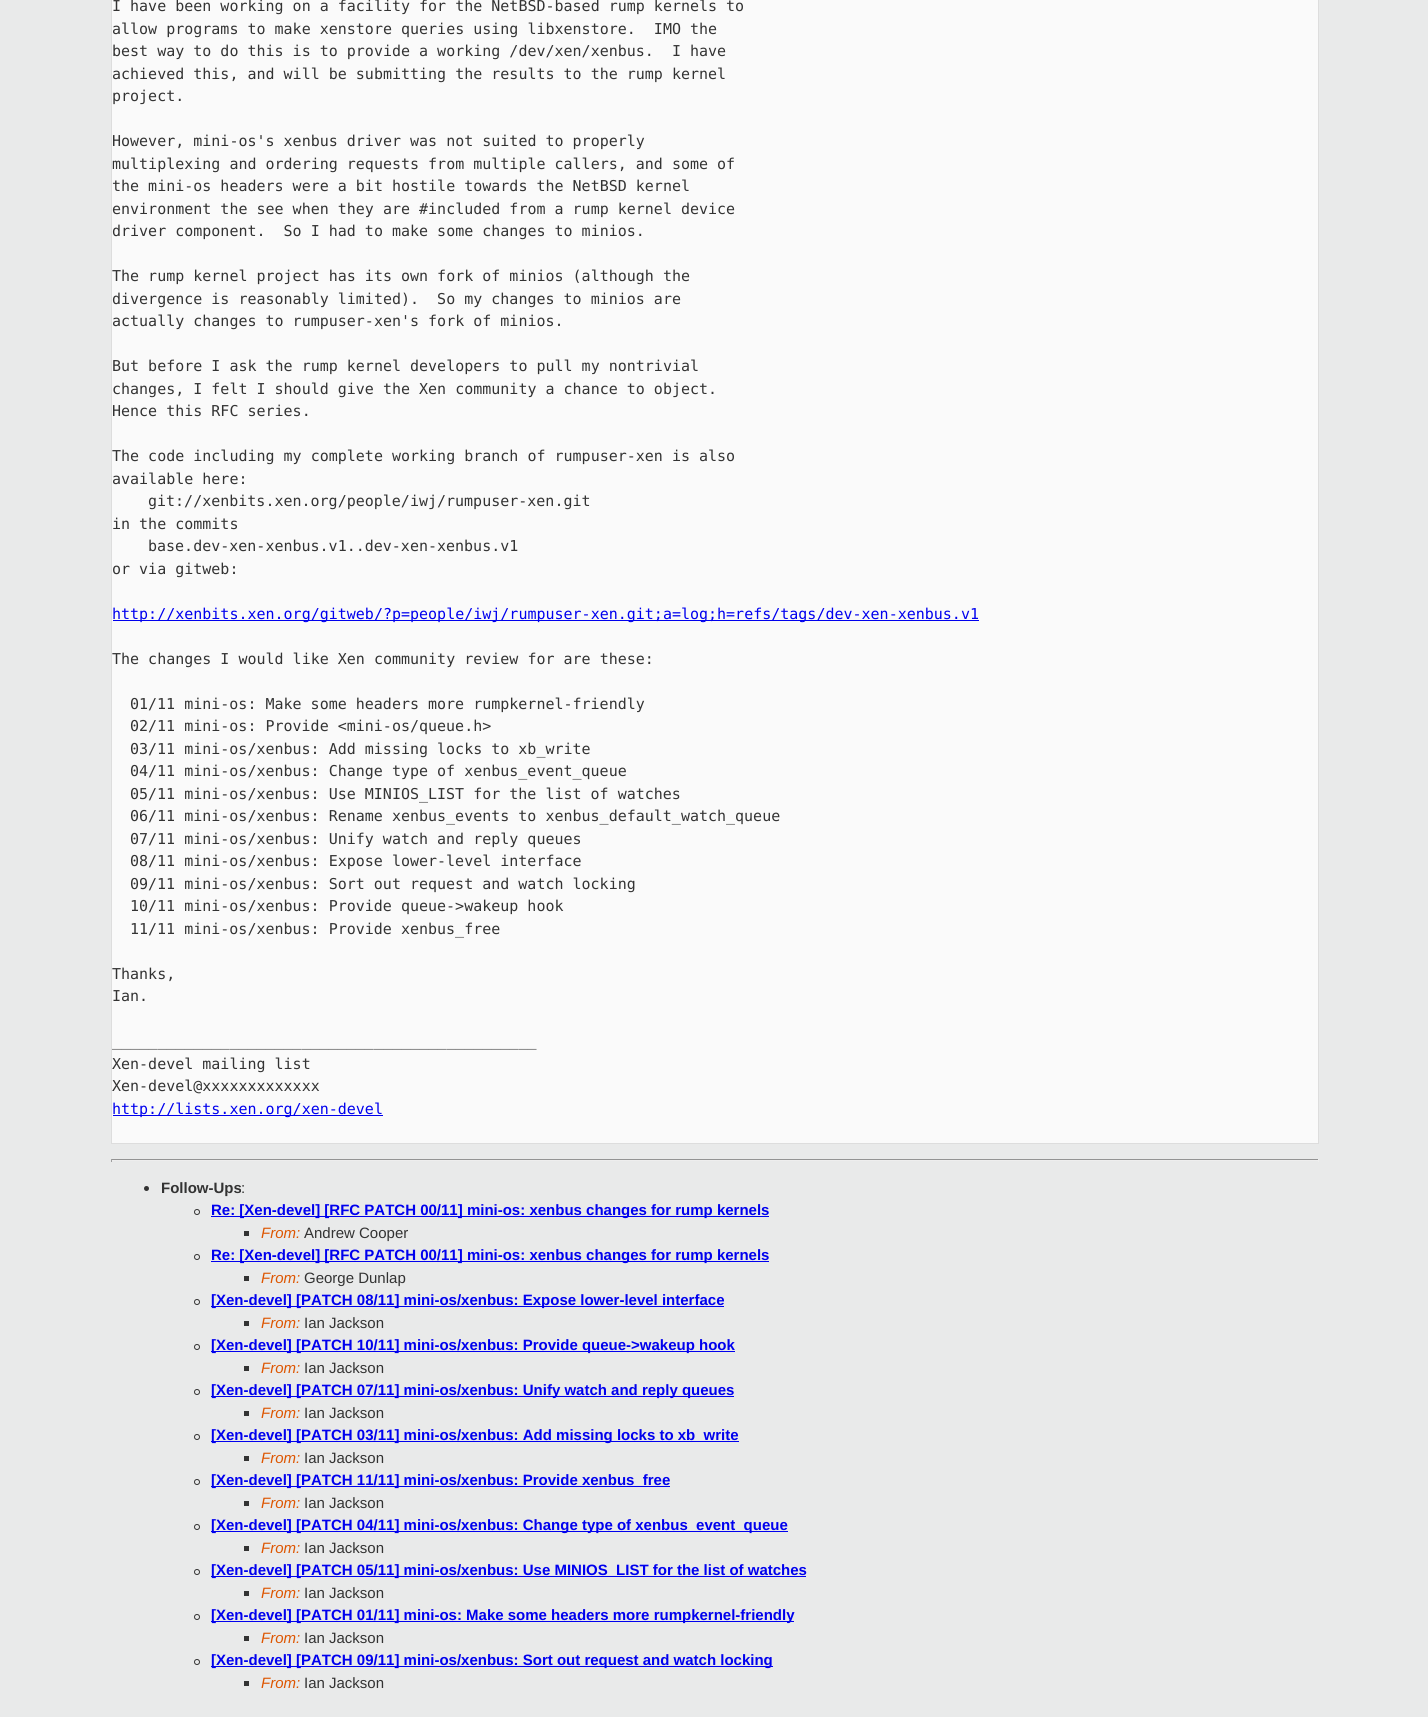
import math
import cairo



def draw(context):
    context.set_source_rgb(233 / 255, 234 / 255, 234 / 255)
    context.paint()
    context.set_source_rgb(250 / 255, 250 / 255, 250 / 255)
    context.rectangle(111.5, -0.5, 1207, 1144)
    context.fill_preserve()
    context.set_source_rgb(221 / 255, 221 / 255, 221 / 255)
    context.set_line_width(1)
    context.stroke()
    context.set_source_rgb(0, 0, 238 / 255)
    context.rectangle(113, 620, 866, 1)
    context.fill()
    context.rectangle(113, 1115, 270, 1)
    context.fill()
    context.set_source_rgb(147 / 255, 147 / 255, 147 / 255)
    context.rectangle(111, 1159, 1208, 1)
    context.fill()
    context.set_source_rgb(238 / 255, 238 / 255, 238 / 255)
    context.rectangle(1318, 1159, 1, 3)
    context.fill()
    context.rectangle(111, 1160, 1208, 1)
    context.fill()
    context.set_source_rgb(159 / 255, 159 / 255, 159 / 255)
    context.rectangle(111, 1159, 1, 3)
    context.fill()
    context.set_source_rgb(51 / 255, 51 / 255, 51 / 255)
    context.arc(146.5, 1188.5, 2.5, 0, 2 * math.pi)
    context.fill()
    context.arc(197, 1212, 2.5, 0, 2 * math.pi)
    context.stroke()
    context.set_source_rgb(0, 0, 238 / 255)
    context.rectangle(211, 1216, 558, 1)
    context.fill()
    context.set_source_rgb(51 / 255, 51 / 255, 51 / 255)
    context.rectangle(244, 1231, 5, 5)
    context.fill()
    context.arc(197, 1257, 2.5, 0, 2 * math.pi)
    context.stroke()
    context.set_source_rgb(0, 0, 238 / 255)
    context.rectangle(211, 1261, 558, 1)
    context.fill()
    context.set_source_rgb(51 / 255, 51 / 255, 51 / 255)
    context.rectangle(244, 1276, 5, 5)
    context.fill()
    context.arc(197, 1302, 2.5, 0, 2 * math.pi)
    context.stroke()
    context.set_source_rgb(0, 0, 238 / 255)
    context.rectangle(211, 1306, 513, 1)
    context.fill()
    context.set_source_rgb(51 / 255, 51 / 255, 51 / 255)
    context.rectangle(244, 1321, 5, 5)
    context.fill()
    context.arc(197, 1347, 2.5, 0, 2 * math.pi)
    context.stroke()
    context.set_source_rgb(0, 0, 238 / 255)
    context.rectangle(211, 1351, 524, 1)
    context.fill()
    context.set_source_rgb(51 / 255, 51 / 255, 51 / 255)
    context.rectangle(244, 1366, 5, 5)
    context.fill()
    context.arc(197, 1392, 2.5, 0, 2 * math.pi)
    context.stroke()
    context.set_source_rgb(0, 0, 238 / 255)
    context.rectangle(211, 1396, 523, 1)
    context.fill()
    context.set_source_rgb(51 / 255, 51 / 255, 51 / 255)
    context.rectangle(244, 1411, 5, 5)
    context.fill()
    context.arc(197, 1437, 2.5, 0, 2 * math.pi)
    context.stroke()
    context.set_source_rgb(0, 0, 238 / 255)
    context.rectangle(211, 1441, 528, 1)
    context.fill()
    context.set_source_rgb(51 / 255, 51 / 255, 51 / 255)
    context.rectangle(244, 1456, 5, 5)
    context.fill()
    context.arc(197, 1482, 2.5, 0, 2 * math.pi)
    context.stroke()
    context.set_source_rgb(0, 0, 238 / 255)
    context.rectangle(211, 1486, 459, 1)
    context.fill()
    context.set_source_rgb(51 / 255, 51 / 255, 51 / 255)
    context.rectangle(244, 1501, 5, 5)
    context.fill()
    context.arc(197, 1527, 2.5, 0, 2 * math.pi)
    context.stroke()
    context.set_source_rgb(0, 0, 238 / 255)
    context.rectangle(211, 1531, 577, 1)
    context.fill()
    context.set_source_rgb(51 / 255, 51 / 255, 51 / 255)
    context.rectangle(244, 1546, 5, 5)
    context.fill()
    context.arc(197, 1572, 2.5, 0, 2 * math.pi)
    context.stroke()
    context.set_source_rgb(0, 0, 238 / 255)
    context.rectangle(211, 1576, 595, 1)
    context.fill()
    context.set_source_rgb(51 / 255, 51 / 255, 51 / 255)
    context.rectangle(244, 1591, 5, 5)
    context.fill()
    context.arc(197, 1617, 2.5, 0, 2 * math.pi)
    context.stroke()
    context.set_source_rgb(0, 0, 238 / 255)
    context.rectangle(211, 1621, 583, 1)
    context.fill()
    context.set_source_rgb(51 / 255, 51 / 255, 51 / 255)
    context.rectangle(244, 1636, 5, 5)
    context.fill()
    context.arc(197, 1662, 2.5, 0, 2 * math.pi)
    context.stroke()
    context.set_source_rgb(0, 0, 238 / 255)
    context.rectangle(211, 1666, 562, 1)
    context.fill()
    context.set_source_rgb(51 / 255, 51 / 255, 51 / 255)
    context.rectangle(244, 1681, 5, 5)
    context.fill()
    context.select_font_face("DejaVu Sans Mono")
    context.set_font_size(15)
    context.move_to(112, 11)
    context.show_text("I have been working on a facility for the NetBSD-based rump kernels to")
    context.move_to(112, 34)
    context.show_text("allow programs to make xenstore queries using libxenstore.  IMO the")
    context.move_to(112, 56)
    context.show_text("best way to do this is to provide a working /dev/xen/xenbus.  I have")
    context.move_to(112, 79)
    context.show_text("achieved this, and will be submitting the results to the rump kernel")
    context.move_to(112, 101)
    context.show_text("project.")
    context.move_to(112, 146)
    context.show_text("However, mini-os's xenbus driver was not suited to properly")
    context.move_to(112, 169)
    context.show_text("multiplexing and ordering requests from multiple callers, and some of")
    context.move_to(112, 191)
    context.show_text("the mini-os headers were a bit hostile towards the NetBSD kernel")
    context.move_to(112, 214)
    context.show_text("environment the see when they are #included from a rump kernel device")
    context.move_to(112, 236)
    context.show_text("driver component.  So I had to make some changes to minios.")
    context.move_to(112, 281)
    context.show_text("The rump kernel project has its own fork of minios (although the")
    context.move_to(112, 304)
    context.show_text("divergence is reasonably limited).  So my changes to minios are")
    context.move_to(112, 326)
    context.show_text("actually changes to rumpuser-xen's fork of minios.")
    context.move_to(112, 371)
    context.show_text("But before I ask the rump kernel developers to pull my nontrivial")
    context.move_to(112, 394)
    context.show_text("changes, I felt I should give the Xen community a chance to object.")
    context.move_to(112, 416)
    context.show_text("Hence this RFC series.")
    context.move_to(112, 461)
    context.show_text("The code including my complete working branch of rumpuser-xen is also")
    context.move_to(112, 484)
    context.show_text("available here:")
    context.move_to(148, 506)
    context.show_text("git://xenbits.xen.org/people/iwj/rumpuser-xen.git")
    context.move_to(112, 529)
    context.show_text("in the commits")
    context.move_to(148, 551)
    context.show_text("base.dev-xen-xenbus.v1..dev-xen-xenbus.v1")
    context.move_to(112, 574)
    context.show_text("or via gitweb:")
    context.set_source_rgb(0, 0, 238 / 255)
    context.move_to(112, 619)
    context.show_text("http://xenbits.xen.org/gitweb/?p=people/iwj/rumpuser-xen.git;a=log;h=refs/tags/dev-xen-xenbus.v1")
    context.set_source_rgb(51 / 255, 51 / 255, 51 / 255)
    context.move_to(112, 664)
    context.show_text("The changes I would like Xen community review for are these:")
    context.move_to(130, 709)
    context.show_text("01/11 mini-os: Make some headers more rumpkernel-friendly")
    context.move_to(130, 731)
    context.show_text("02/11 mini-os: Provide <mini-os/queue.h>")
    context.move_to(130, 754)
    context.show_text("03/11 mini-os/xenbus: Add missing locks to xb_write")
    context.move_to(130, 776)
    context.show_text("04/11 mini-os/xenbus: Change type of xenbus_event_queue")
    context.move_to(130, 799)
    context.show_text("05/11 mini-os/xenbus: Use MINIOS_LIST for the list of watches")
    context.move_to(130, 821)
    context.show_text("06/11 mini-os/xenbus: Rename xenbus_events to xenbus_default_watch_queue")
    context.move_to(130, 844)
    context.show_text("07/11 mini-os/xenbus: Unify watch and reply queues")
    context.move_to(130, 866)
    context.show_text("08/11 mini-os/xenbus: Expose lower-level interface")
    context.move_to(130, 889)
    context.show_text("09/11 mini-os/xenbus: Sort out request and watch locking")
    context.move_to(130, 911)
    context.show_text("10/11 mini-os/xenbus: Provide queue->wakeup hook")
    context.move_to(130, 934)
    context.show_text("11/11 mini-os/xenbus: Provide xenbus_free")
    context.move_to(112, 979)
    context.show_text("Thanks,")
    context.move_to(112, 1001)
    context.show_text("Ian.")
    context.move_to(112, 1046)
    context.show_text("_______________________________________________")
    context.move_to(112, 1069)
    context.show_text("Xen-devel mailing list")
    context.move_to(112, 1091)
    context.show_text("Xen-devel@xxxxxxxxxxxxx")
    context.set_source_rgb(0, 0, 238 / 255)
    context.move_to(112, 1114)
    context.show_text("http://lists.xen.org/xen-devel")
    context.select_font_face("Liberation Sans", cairo.FontSlant.NORMAL, cairo.FontWeight.BOLD)
    context.set_source_rgb(51 / 255, 51 / 255, 51 / 255)
    context.move_to(161, 1193)
    context.show_text("Follow-Ups")
    context.select_font_face("Liberation Sans")
    context.move_to(241, 1193)
    context.show_text(":")
    context.select_font_face("Liberation Sans", cairo.FontSlant.NORMAL, cairo.FontWeight.BOLD)
    context.set_source_rgb(0, 0, 238 / 255)
    context.move_to(211, 1215)
    context.show_text("Re: [Xen-devel] [RFC PATCH 00/11] mini-os: xenbus changes for rump kernels")
    context.select_font_face("Liberation Sans", cairo.FontSlant.ITALIC)
    context.set_source_rgb(221 / 255, 85 / 255, 0)
    context.move_to(261, 1238)
    context.show_text("From:")
    context.select_font_face("Liberation Sans")
    context.set_source_rgb(51 / 255, 51 / 255, 51 / 255)
    context.move_to(304, 1238)
    context.show_text("Andrew Cooper")
    context.select_font_face("Liberation Sans", cairo.FontSlant.NORMAL, cairo.FontWeight.BOLD)
    context.set_source_rgb(0, 0, 238 / 255)
    context.move_to(211, 1260)
    context.show_text("Re: [Xen-devel] [RFC PATCH 00/11] mini-os: xenbus changes for rump kernels")
    context.select_font_face("Liberation Sans", cairo.FontSlant.ITALIC)
    context.set_source_rgb(221 / 255, 85 / 255, 0)
    context.move_to(261, 1283)
    context.show_text("From:")
    context.select_font_face("Liberation Sans")
    context.set_source_rgb(51 / 255, 51 / 255, 51 / 255)
    context.move_to(304, 1283)
    context.show_text("George Dunlap")
    context.select_font_face("Liberation Sans", cairo.FontSlant.NORMAL, cairo.FontWeight.BOLD)
    context.set_source_rgb(0, 0, 238 / 255)
    context.move_to(211, 1305)
    context.show_text("[Xen-devel] [PATCH 08/11] mini-os/xenbus: Expose lower-level interface")
    context.select_font_face("Liberation Sans", cairo.FontSlant.ITALIC)
    context.set_source_rgb(221 / 255, 85 / 255, 0)
    context.move_to(261, 1328)
    context.show_text("From:")
    context.select_font_face("Liberation Sans")
    context.set_source_rgb(51 / 255, 51 / 255, 51 / 255)
    context.move_to(304, 1328)
    context.show_text("Ian Jackson")
    context.select_font_face("Liberation Sans", cairo.FontSlant.NORMAL, cairo.FontWeight.BOLD)
    context.set_source_rgb(0, 0, 238 / 255)
    context.move_to(211, 1350)
    context.show_text("[Xen-devel] [PATCH 10/11] mini-os/xenbus: Provide queue->wakeup hook")
    context.select_font_face("Liberation Sans", cairo.FontSlant.ITALIC)
    context.set_source_rgb(221 / 255, 85 / 255, 0)
    context.move_to(261, 1373)
    context.show_text("From:")
    context.select_font_face("Liberation Sans")
    context.set_source_rgb(51 / 255, 51 / 255, 51 / 255)
    context.move_to(304, 1373)
    context.show_text("Ian Jackson")
    context.select_font_face("Liberation Sans", cairo.FontSlant.NORMAL, cairo.FontWeight.BOLD)
    context.set_source_rgb(0, 0, 238 / 255)
    context.move_to(211, 1395)
    context.show_text("[Xen-devel] [PATCH 07/11] mini-os/xenbus: Unify watch and reply queues")
    context.select_font_face("Liberation Sans", cairo.FontSlant.ITALIC)
    context.set_source_rgb(221 / 255, 85 / 255, 0)
    context.move_to(261, 1418)
    context.show_text("From:")
    context.select_font_face("Liberation Sans")
    context.set_source_rgb(51 / 255, 51 / 255, 51 / 255)
    context.move_to(304, 1418)
    context.show_text("Ian Jackson")
    context.select_font_face("Liberation Sans", cairo.FontSlant.NORMAL, cairo.FontWeight.BOLD)
    context.set_source_rgb(0, 0, 238 / 255)
    context.move_to(211, 1440)
    context.show_text("[Xen-devel] [PATCH 03/11] mini-os/xenbus: Add missing locks to xb_write")
    context.select_font_face("Liberation Sans", cairo.FontSlant.ITALIC)
    context.set_source_rgb(221 / 255, 85 / 255, 0)
    context.move_to(261, 1463)
    context.show_text("From:")
    context.select_font_face("Liberation Sans")
    context.set_source_rgb(51 / 255, 51 / 255, 51 / 255)
    context.move_to(304, 1463)
    context.show_text("Ian Jackson")
    context.select_font_face("Liberation Sans", cairo.FontSlant.NORMAL, cairo.FontWeight.BOLD)
    context.set_source_rgb(0, 0, 238 / 255)
    context.move_to(211, 1485)
    context.show_text("[Xen-devel] [PATCH 11/11] mini-os/xenbus: Provide xenbus_free")
    context.select_font_face("Liberation Sans", cairo.FontSlant.ITALIC)
    context.set_source_rgb(221 / 255, 85 / 255, 0)
    context.move_to(261, 1508)
    context.show_text("From:")
    context.select_font_face("Liberation Sans")
    context.set_source_rgb(51 / 255, 51 / 255, 51 / 255)
    context.move_to(304, 1508)
    context.show_text("Ian Jackson")
    context.select_font_face("Liberation Sans", cairo.FontSlant.NORMAL, cairo.FontWeight.BOLD)
    context.set_source_rgb(0, 0, 238 / 255)
    context.move_to(211, 1530)
    context.show_text("[Xen-devel] [PATCH 04/11] mini-os/xenbus: Change type of xenbus_event_queue")
    context.select_font_face("Liberation Sans", cairo.FontSlant.ITALIC)
    context.set_source_rgb(221 / 255, 85 / 255, 0)
    context.move_to(261, 1553)
    context.show_text("From:")
    context.select_font_face("Liberation Sans")
    context.set_source_rgb(51 / 255, 51 / 255, 51 / 255)
    context.move_to(304, 1553)
    context.show_text("Ian Jackson")
    context.select_font_face("Liberation Sans", cairo.FontSlant.NORMAL, cairo.FontWeight.BOLD)
    context.set_source_rgb(0, 0, 238 / 255)
    context.move_to(211, 1575)
    context.show_text("[Xen-devel] [PATCH 05/11] mini-os/xenbus: Use MINIOS_LIST for the list of watches")
    context.select_font_face("Liberation Sans", cairo.FontSlant.ITALIC)
    context.set_source_rgb(221 / 255, 85 / 255, 0)
    context.move_to(261, 1598)
    context.show_text("From:")
    context.select_font_face("Liberation Sans")
    context.set_source_rgb(51 / 255, 51 / 255, 51 / 255)
    context.move_to(304, 1598)
    context.show_text("Ian Jackson")
    context.select_font_face("Liberation Sans", cairo.FontSlant.NORMAL, cairo.FontWeight.BOLD)
    context.set_source_rgb(0, 0, 238 / 255)
    context.move_to(211, 1620)
    context.show_text("[Xen-devel] [PATCH 01/11] mini-os: Make some headers more rumpkernel-friendly")
    context.select_font_face("Liberation Sans", cairo.FontSlant.ITALIC)
    context.set_source_rgb(221 / 255, 85 / 255, 0)
    context.move_to(261, 1643)
    context.show_text("From:")
    context.select_font_face("Liberation Sans")
    context.set_source_rgb(51 / 255, 51 / 255, 51 / 255)
    context.move_to(304, 1643)
    context.show_text("Ian Jackson")
    context.select_font_face("Liberation Sans", cairo.FontSlant.NORMAL, cairo.FontWeight.BOLD)
    context.set_source_rgb(0, 0, 238 / 255)
    context.move_to(211, 1665)
    context.show_text("[Xen-devel] [PATCH 09/11] mini-os/xenbus: Sort out request and watch locking")
    context.select_font_face("Liberation Sans", cairo.FontSlant.ITALIC)
    context.set_source_rgb(221 / 255, 85 / 255, 0)
    context.move_to(261, 1688)
    context.show_text("From:")
    context.select_font_face("Liberation Sans")
    context.set_source_rgb(51 / 255, 51 / 255, 51 / 255)
    context.move_to(304, 1688)
    context.show_text("Ian Jackson")


surface = cairo.ImageSurface(cairo.Format.RGB24, 1428, 1717)
context = cairo.Context(surface)
options = cairo.FontOptions()
options.set_hint_metrics(cairo.HintMetrics.OFF)
options.set_hint_style(cairo.HintStyle.NONE)
context.set_font_options(options)
context.set_miter_limit(4)
draw(context)
surface.write_to_png("out.png")
